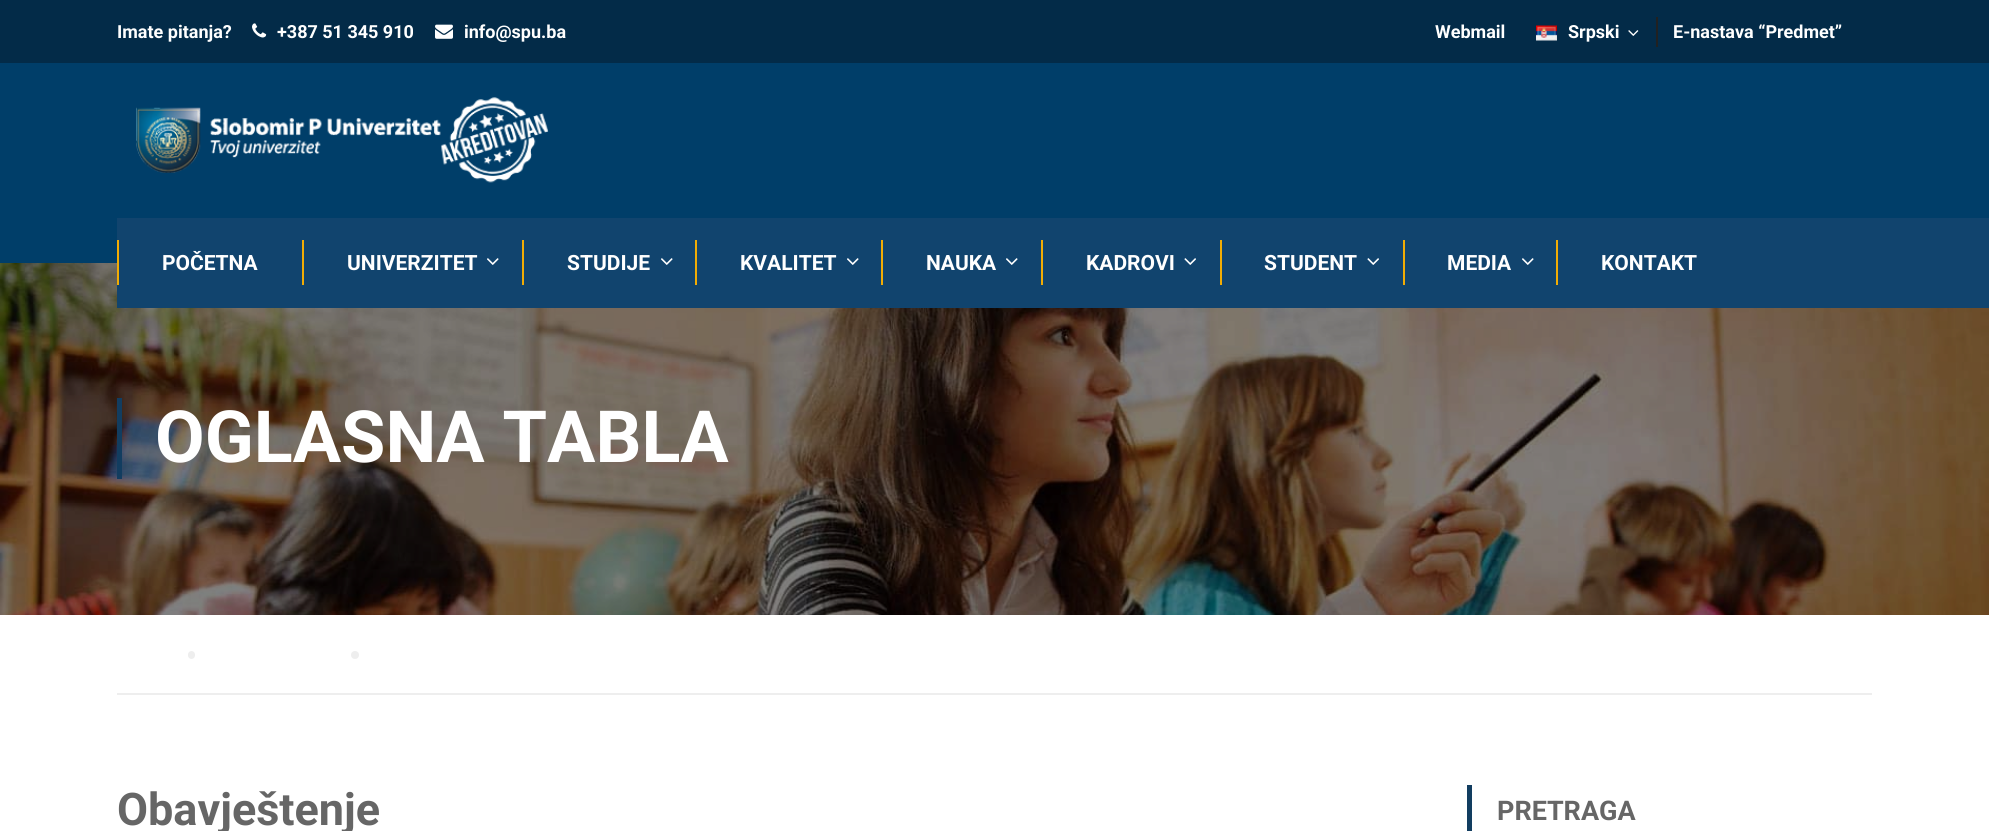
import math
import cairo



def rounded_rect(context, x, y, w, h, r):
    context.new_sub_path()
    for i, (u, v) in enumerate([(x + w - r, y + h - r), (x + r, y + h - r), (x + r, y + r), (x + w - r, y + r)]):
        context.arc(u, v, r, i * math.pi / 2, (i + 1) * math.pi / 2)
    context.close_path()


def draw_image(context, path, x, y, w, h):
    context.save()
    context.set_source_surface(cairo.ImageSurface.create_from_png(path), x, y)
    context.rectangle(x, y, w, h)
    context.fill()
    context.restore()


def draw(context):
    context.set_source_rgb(1, 1, 1)
    context.paint()
    context.set_source_rgb(0, 62 / 255, 105 / 255)
    context.rectangle(0, 63, 1989, 200)
    context.fill()
    context.set_source_rgb(3 / 255, 43 / 255, 72 / 255)
    context.rectangle(0, 0, 1989, 63)
    context.fill()
    draw_image(context, "images/1.png", 252, 23, 15, 15)
    draw_image(context, "images/2.png", 435, 24, 18, 15)
    context.set_source_rgb(33 / 255, 33 / 255, 33 / 255)
    context.rectangle(1656, 17, 2, 30)
    context.fill()
    draw_image(context, "images/3.png", 1536, 25, 21, 16)
    draw_image(context, "images/4.png", 1628, 30, 11, 6)
    draw_image(context, "images/5.png", 136, 97, 413, 86)
    draw_image(context, "images/8.png", 0, 263, 1989, 352)
    context.set_source_rgb(17 / 255, 68 / 255, 110 / 255)
    context.rectangle(117, 218, 1872, 90)
    context.fill()
    context.set_source_rgb(242 / 255, 172 / 255, 3 / 255)
    context.rectangle(117, 240, 2, 45)
    context.fill()
    context.rectangle(302, 240, 2, 45)
    context.fill()
    draw_image(context, "images/6.png", 487, 258, 12, 7)
    context.rectangle(522, 240, 2, 45)
    context.fill()
    draw_image(context, "images/6.png", 661, 258, 12, 7)
    context.rectangle(695, 240, 2, 45)
    context.fill()
    draw_image(context, "images/6.png", 847, 258, 12, 7)
    context.rectangle(881, 240, 2, 45)
    context.fill()
    draw_image(context, "images/6.png", 1006, 258, 12, 7)
    context.rectangle(1041, 240, 2, 45)
    context.fill()
    draw_image(context, "images/7.png", 1184, 258, 12, 7)
    context.rectangle(1220, 240, 2, 45)
    context.fill()
    draw_image(context, "images/7.png", 1367, 258, 12, 7)
    context.rectangle(1403, 240, 2, 45)
    context.fill()
    draw_image(context, "images/6.png", 1522, 258, 12, 7)
    context.rectangle(1556, 240, 2, 45)
    context.fill()
    context.set_source_rgb(18 / 255, 61 / 255, 96 / 255)
    context.rectangle(117, 398, 5, 81)
    context.fill()
    context.set_source_rgb(238 / 255, 238 / 255, 238 / 255)
    context.rectangle(117, 693, 1755, 2)
    context.fill()
    rounded_rect(context, 188, 651, 7, 8, 3.5)
    context.fill()
    context.arc(355, 655, 4, 0, 2 * math.pi)
    context.fill()
    context.set_source_rgb(18 / 255, 61 / 255, 96 / 255)
    context.rectangle(1467, 785, 5, 46)
    context.fill()
    context.select_font_face("Roboto", cairo.FontSlant.NORMAL, cairo.FontWeight.BOLD)
    context.set_font_size(18)
    context.set_source_rgb(1, 1, 1)
    context.move_to(117, 38)
    context.show_text("Imate pitanja?")
    context.move_to(277, 38)
    context.show_text("+387 51 345 910")
    context.move_to(464, 38)
    context.show_text("info@spu.ba")
    context.move_to(1435, 38)
    context.show_text("Webmail")
    context.move_to(1568, 38)
    context.show_text("Srpski")
    context.move_to(1673, 38)
    context.show_text("E-nastava “Predmet”")
    context.set_font_size(21)
    context.move_to(162, 270)
    context.show_text("POČETNA")
    context.move_to(347, 270)
    context.show_text("UNIVERZITET")
    context.move_to(567, 270)
    context.show_text("STUDIJE")
    context.move_to(740, 270)
    context.show_text("KVALITET")
    context.move_to(926, 270)
    context.show_text("NAUKA")
    context.move_to(1086, 270)
    context.show_text("KADROVI")
    context.move_to(1264, 270)
    context.show_text("STUDENT")
    context.move_to(1447, 270)
    context.show_text("MEDIA")
    context.move_to(1601, 270)
    context.show_text("KONTAKT")
    context.set_font_size(72)
    context.move_to(155, 462)
    context.show_text("OGLASNA TABLA")
    context.set_font_size(45)
    context.set_source_rgb(102 / 255, 102 / 255, 102 / 255)
    context.move_to(117, 825)
    context.show_text("Obavještenje")
    context.set_font_size(27)
    context.move_to(1497, 820)
    context.show_text("PRETRAGA")


surface = cairo.ImageSurface(cairo.Format.RGB24, 1989, 831)
context = cairo.Context(surface)
options = cairo.FontOptions()
options.set_hint_metrics(cairo.HintMetrics.OFF)
options.set_hint_style(cairo.HintStyle.NONE)
context.set_font_options(options)
context.set_miter_limit(4)
draw(context)
surface.write_to_png("out.png")
